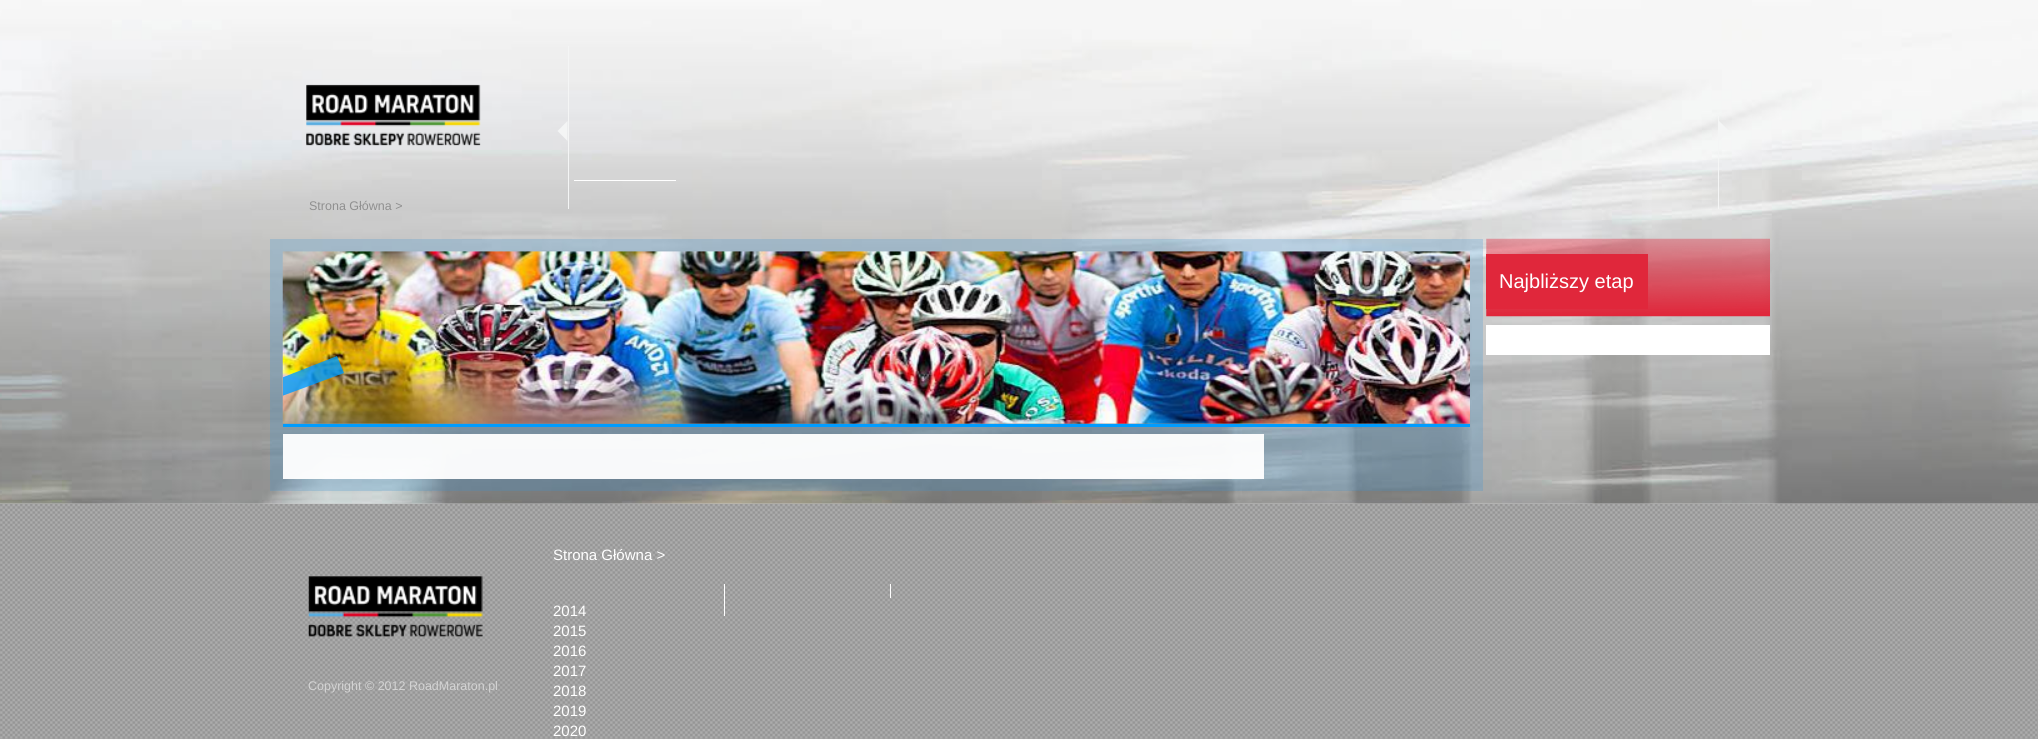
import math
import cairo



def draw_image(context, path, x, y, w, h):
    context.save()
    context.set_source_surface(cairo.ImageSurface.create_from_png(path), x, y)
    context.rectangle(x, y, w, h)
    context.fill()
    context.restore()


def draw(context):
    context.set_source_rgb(1, 1, 1)
    context.paint()
    draw_image(context, "images/1.png", 0, 0, 2038, 504)
    draw_image(context, "images/2.png", 306, 84, 175, 62)
    context.set_source_rgb(244 / 255, 245 / 255, 245 / 255)
    context.rectangle(568, 46, 1, 163)
    context.fill()
    context.new_path()
    context.move_to(567.5, 121)
    context.line_to(567.5, 141)
    context.line_to(557.5, 131)
    context.close_path()
    context.fill()
    context.set_source_rgb(1, 1, 1)
    context.rectangle(574, 180, 102, 1)
    context.fill()
    context.set_source_rgb(244 / 255, 245 / 255, 245 / 255)
    context.rectangle(1718, 116, 1, 93)
    context.fill()
    context.new_path()
    context.move_to(1719, 141)
    context.line_to(1719, 121)
    context.line_to(1729, 131)
    context.close_path()
    context.fill()
    context.set_source_rgba(60 / 255, 148 / 255, 213 / 255, 0.25)
    context.rectangle(270, 239, 1213, 252)
    context.fill()
    context.set_source_rgb(0, 156 / 255, 1)
    context.rectangle(283, 424, 1187, 3)
    context.fill()
    draw_image(context, "images/3.png", 282, 251, 1188, 173)
    context.save()
    context.rectangle(283, 251, 1187, 173)
    context.clip()
    context.set_source_rgba(0, 156 / 255, 1, 0.8)
    context.new_path()
    context.move_to(276, 380)
    context.line_to(337, 356)
    context.line_to(344, 373)
    context.line_to(282, 396)
    context.close_path()
    context.fill()
    context.restore()
    context.set_source_rgba(1, 1, 1, 0.95)
    context.rectangle(283, 434, 981, 45)
    context.fill()
    draw_image(context, "images/4.png", 1486, 238, 284, 79)
    context.set_source_rgb(224 / 255, 39 / 255, 59 / 255)
    context.rectangle(1486, 254, 162, 55)
    context.fill()
    context.set_source_rgb(1, 1, 1)
    context.rectangle(1486, 325, 284, 30)
    context.fill()
    draw_image(context, "images/5.png", 0, 503, 2038, 236)
    context.rectangle(724, 584, 1, 32)
    context.fill()
    context.rectangle(890, 584, 1, 14)
    context.fill()
    draw_image(context, "images/6.png", 308, 576, 175, 61)
    context.select_font_face("Liberation Sans")
    context.set_font_size(12.5)
    context.set_source_rgb(143 / 255, 143 / 255, 143 / 255)
    context.move_to(309, 210)
    context.show_text("Strona Główna >")
    context.set_font_size(20)
    context.set_source_rgb(1, 1, 1)
    context.move_to(1499, 288)
    context.show_text("Najbliższy etap")
    context.set_font_size(15)
    context.move_to(553, 560)
    context.show_text("Strona Główna >")
    context.set_font_size(12.5)
    context.set_source_rgb(212 / 255, 212 / 255, 212 / 255)
    context.move_to(308, 690)
    context.show_text("Copyright © 2012 RoadMaraton.pl")
    context.set_font_size(15)
    context.set_source_rgb(1, 1, 1)
    context.move_to(553, 616)
    context.show_text("2014")
    context.move_to(553, 636)
    context.show_text("2015")
    context.move_to(553, 656)
    context.show_text("2016")
    context.move_to(553, 676)
    context.show_text("2017")
    context.move_to(553, 696)
    context.show_text("2018")
    context.move_to(553, 716)
    context.show_text("2019")
    context.move_to(553, 736)
    context.show_text("2020")


surface = cairo.ImageSurface(cairo.Format.RGB24, 2038, 739)
context = cairo.Context(surface)
options = cairo.FontOptions()
options.set_hint_metrics(cairo.HintMetrics.OFF)
options.set_hint_style(cairo.HintStyle.NONE)
context.set_font_options(options)
context.set_miter_limit(4)
draw(context)
surface.write_to_png("out.png")
